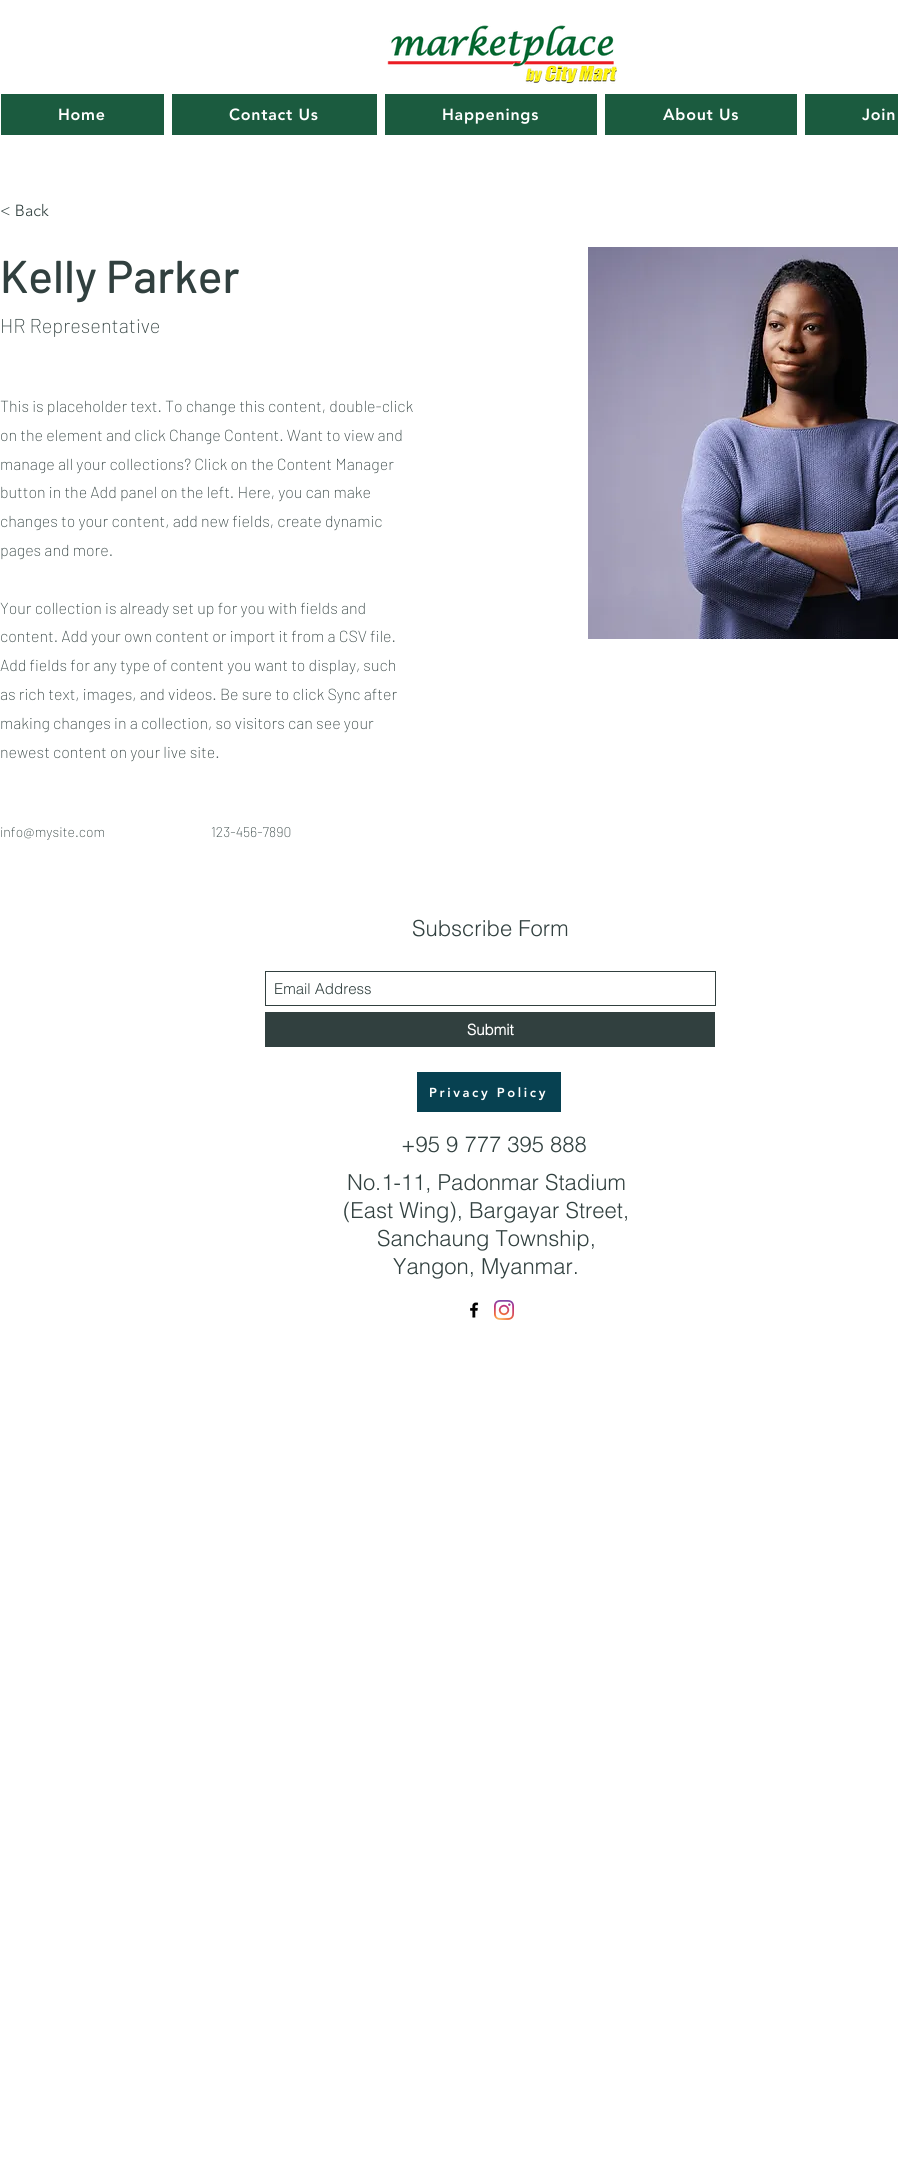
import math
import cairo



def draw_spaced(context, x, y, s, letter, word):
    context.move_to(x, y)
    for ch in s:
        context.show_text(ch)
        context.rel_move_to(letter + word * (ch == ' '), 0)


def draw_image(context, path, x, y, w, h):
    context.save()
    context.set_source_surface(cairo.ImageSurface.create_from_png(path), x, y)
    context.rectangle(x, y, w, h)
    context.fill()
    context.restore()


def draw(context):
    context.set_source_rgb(1, 1, 1)
    context.paint()
    draw_image(context, "images/1.png", 387, 25, 230, 59)
    context.set_source_rgb(27 / 255, 91 / 255, 63 / 255)
    context.rectangle(1, 94, 163, 41)
    context.fill()
    context.rectangle(172, 94, 205, 41)
    context.fill()
    context.rectangle(385, 94, 212, 41)
    context.fill()
    context.rectangle(605, 94, 192, 41)
    context.fill()
    context.rectangle(805, 94, 93, 41)
    context.fill()
    draw_image(context, "images/2.png", 588, 247, 310, 392)
    context.rectangle(265.5, 971.5, 450, 34)
    context.set_source_rgb(49 / 255, 64 / 255, 63 / 255)
    context.set_line_width(1)
    context.stroke()
    context.rectangle(265, 1012, 450, 35)
    context.fill()
    context.set_source_rgb(7 / 255, 65 / 255, 81 / 255)
    context.rectangle(417, 1072, 144, 40)
    context.fill()
    draw_image(context, "images/3.png", 470, 1302, 9, 16)
    draw_image(context, "images/4.png", 494, 1300, 20, 20)
    context.select_font_face("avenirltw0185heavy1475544 Black")
    context.set_font_size(16)
    context.set_source_rgb(1, 1, 1)
    draw_spaced(context, 58, 120, "Home", 0.75, 0)
    draw_spaced(context, 229, 120, "Contact Us", 0.75, 0)
    draw_spaced(context, 442, 120, "Happenings", 0.75, 0)
    draw_spaced(context, 663, 120, "About Us", 0.75, 0)
    draw_spaced(context, 862, 120, "Join", 0.75, 0)
    context.select_font_face("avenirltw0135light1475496 Light")
    context.set_source_rgb(49 / 255, 64 / 255, 63 / 255)
    context.move_to(0, 216)
    context.show_text("< Back")
    context.select_font_face("Barlow Medium")
    context.set_font_size(46)
    context.move_to(0, 293)
    context.show_text("Kelly Parker")
    context.select_font_face("Barlow ExtraLight")
    context.set_font_size(20)
    context.move_to(0, 333)
    context.show_text("HR Representative")
    context.set_font_size(16)
    context.move_to(0, 412)
    context.show_text("This is placeholder text. To change this content, double-click")
    context.move_to(0, 441)
    context.show_text("on the element and click Change Content. Want to view and")
    context.move_to(0, 470)
    context.show_text("manage all your collections? Click on the Content Manager")
    context.move_to(0, 498)
    context.show_text("button in the Add panel on the left. Here, you can make")
    context.move_to(0, 527)
    context.show_text("changes to your content, add new fields, create dynamic")
    context.move_to(0, 556)
    context.show_text("pages and more.")
    context.move_to(0, 614)
    context.show_text("Your collection is already set up for you with fields and")
    context.move_to(0, 642)
    context.show_text("content. Add your own content or import it from a CSV file.")
    context.move_to(0, 671)
    context.show_text("Add fields for any type of content you want to display, such")
    context.move_to(0, 700)
    context.show_text("as rich text, images, and videos. Be sure to click Sync after")
    context.move_to(0, 729)
    context.show_text("making changes in a collection, so visitors can see your")
    context.move_to(0, 758)
    context.show_text("newest content on your live site.")
    context.set_font_size(14)
    context.move_to(0, 837)
    context.show_text("info@mysite.com")
    context.move_to(211, 837)
    context.show_text("123-456-7890")
    context.select_font_face("helvetica Light")
    context.set_font_size(22)
    context.move_to(412, 936)
    context.show_text("Subscribe Form")
    context.set_font_size(15)
    context.move_to(274, 994)
    context.show_text("Email Address")
    context.select_font_face("helvetica", cairo.FontSlant.NORMAL, cairo.FontWeight.BOLD)
    context.set_source_rgb(1, 1, 1)
    context.move_to(467, 1035)
    context.show_text("Submit")
    context.select_font_face("avenirltw0185heavy1475544 Black")
    context.set_font_size(13)
    draw_spaced(context, 429, 1097, "Privacy Policy", 2.6, 0)
    context.select_font_face("helvetica Light")
    context.set_font_size(22)
    context.set_source_rgb(49 / 255, 64 / 255, 63 / 255)
    context.move_to(401, 1152)
    context.show_text("+95 9 777 395 888")
    context.move_to(347, 1190)
    context.show_text("No.1-11, Padonmar Stadium")
    context.move_to(343, 1218)
    context.show_text("(East Wing), Bargayar Street,")
    context.move_to(377, 1246)
    context.show_text("Sanchaung Township,")
    context.move_to(393, 1274)
    context.show_text("Yangon, Myanmar.")


surface = cairo.ImageSurface(cairo.Format.RGB24, 898, 2161)
context = cairo.Context(surface)
options = cairo.FontOptions()
options.set_hint_metrics(cairo.HintMetrics.OFF)
options.set_hint_style(cairo.HintStyle.NONE)
context.set_font_options(options)
context.set_miter_limit(4)
draw(context)
surface.write_to_png("out.png")
